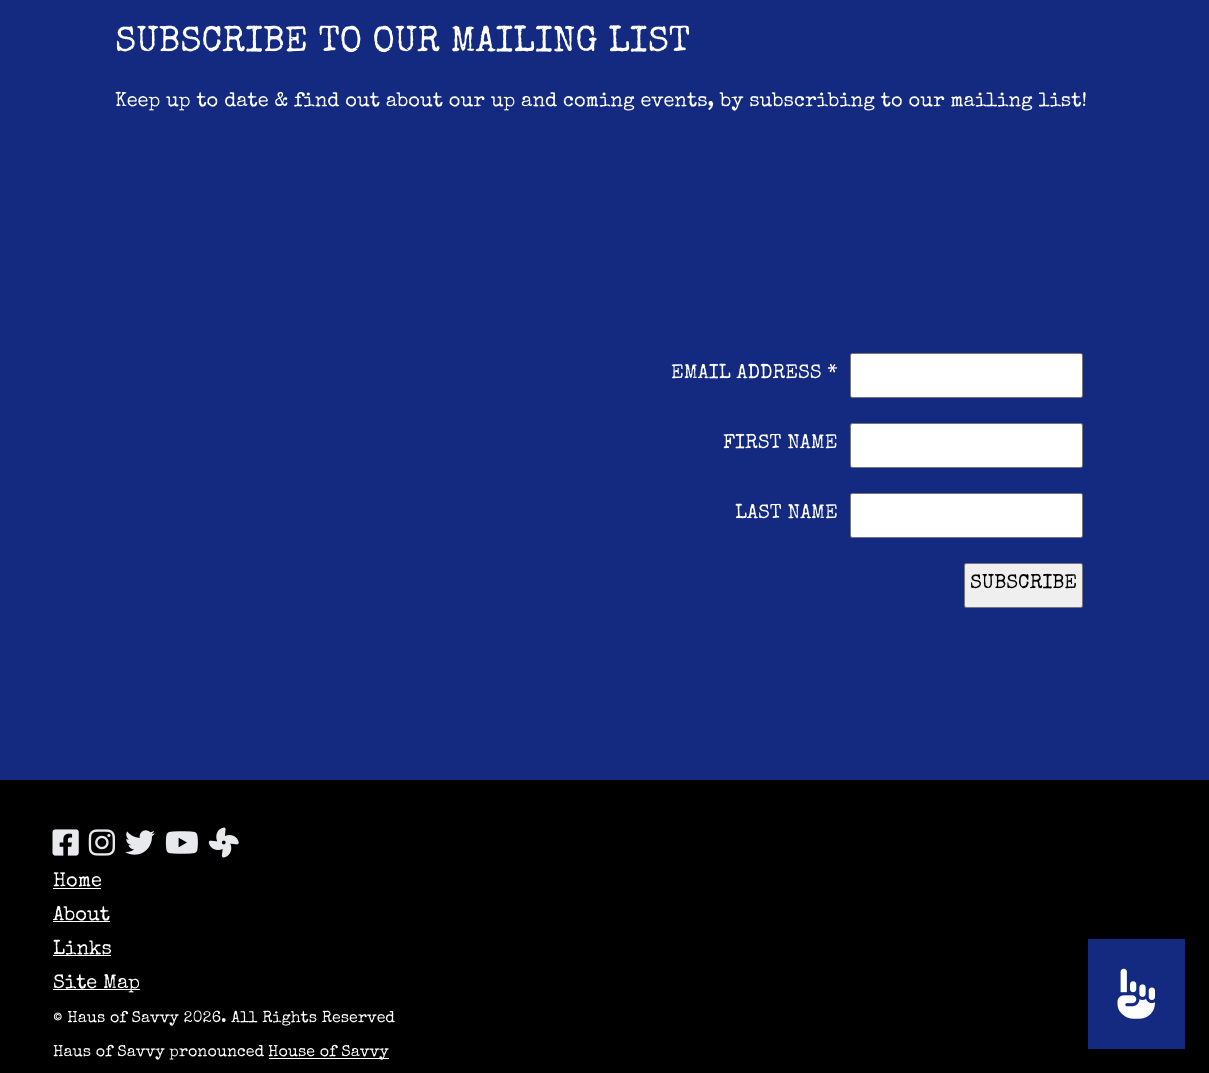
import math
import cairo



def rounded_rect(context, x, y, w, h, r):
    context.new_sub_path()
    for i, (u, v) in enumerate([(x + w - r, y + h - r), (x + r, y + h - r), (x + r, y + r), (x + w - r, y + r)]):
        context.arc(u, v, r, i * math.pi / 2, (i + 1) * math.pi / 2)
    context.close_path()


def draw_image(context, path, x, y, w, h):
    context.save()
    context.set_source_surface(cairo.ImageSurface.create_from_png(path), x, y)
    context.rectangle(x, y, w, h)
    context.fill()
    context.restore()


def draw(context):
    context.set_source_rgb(0, 0, 0)
    context.paint()
    context.set_source_rgb(20 / 255, 42 / 255, 128 / 255)
    context.rectangle(0, 0, 1209, 780)
    context.fill()
    context.set_source_rgb(1, 1, 1)
    rounded_rect(context, 850.5, 353.5, 232, 44, 2)
    context.fill_preserve()
    context.set_source_rgb(118 / 255, 118 / 255, 118 / 255)
    context.set_line_width(1)
    context.stroke()
    context.set_source_rgb(1, 1, 1)
    rounded_rect(context, 850.5, 423.5, 232, 44, 2)
    context.fill_preserve()
    context.set_source_rgb(118 / 255, 118 / 255, 118 / 255)
    context.stroke()
    context.set_source_rgb(1, 1, 1)
    rounded_rect(context, 850.5, 493.5, 232, 44, 2)
    context.fill_preserve()
    context.set_source_rgb(118 / 255, 118 / 255, 118 / 255)
    context.stroke()
    context.set_source_rgb(239 / 255, 239 / 255, 239 / 255)
    rounded_rect(context, 964.5, 563.5, 118, 44, 2)
    context.fill_preserve()
    context.set_source_rgb(118 / 255, 118 / 255, 118 / 255)
    context.stroke()
    draw_image(context, "images/1.png", 52, 829, 27, 27)
    draw_image(context, "images/2.png", 88, 829, 27, 27)
    draw_image(context, "images/3.png", 125, 830, 30, 25)
    draw_image(context, "images/4.png", 165, 831, 33, 23)
    draw_image(context, "images/5.png", 208, 827, 31, 31)
    context.set_source_rgb(1, 1, 1)
    context.rectangle(53, 888, 48, 1)
    context.fill()
    context.rectangle(53, 921, 57, 1)
    context.fill()
    context.rectangle(53, 955, 58, 1)
    context.fill()
    context.rectangle(53, 989, 87, 1)
    context.fill()
    context.rectangle(269, 1058, 120, 1)
    context.fill()
    context.set_source_rgb(20 / 255, 42 / 255, 128 / 255)
    context.rectangle(1088, 939, 97, 110)
    context.fill()
    draw_image(context, "images/6.png", 1117, 968, 38, 51)
    context.select_font_face("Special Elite")
    context.set_font_size(36)
    context.set_source_rgb(1, 1, 1)
    context.move_to(115, 51)
    context.show_text("SUBSCRIBE TO OUR MAILING LIST")
    context.set_font_size(20)
    context.move_to(115, 106)
    context.show_text("Keep up to date & find out about our up and coming events, by subscribing to our mailing list!")
    context.move_to(671, 378)
    context.show_text("EMAIL ADDRESS *")
    context.move_to(723, 448)
    context.show_text("FIRST NAME")
    context.move_to(735, 518)
    context.show_text("LAST NAME")
    context.set_source_rgb(0, 0, 0)
    context.move_to(970, 588)
    context.show_text("SUBSCRIBE")
    context.set_source_rgb(1, 1, 1)
    context.move_to(53, 886)
    context.show_text("Home")
    context.move_to(53, 920)
    context.show_text("About")
    context.move_to(53, 954)
    context.show_text("Links")
    context.move_to(53, 988)
    context.show_text("Site Map")
    context.set_font_size(16)
    context.move_to(53, 1022)
    context.show_text("© Haus of Savvy 2026. All Rights Reserved")
    context.move_to(53, 1056)
    context.show_text("Haus of Savvy pronounced")
    context.move_to(268, 1056)
    context.show_text("House of Savvy")


surface = cairo.ImageSurface(cairo.Format.RGB24, 1209, 1073)
context = cairo.Context(surface)
options = cairo.FontOptions()
options.set_hint_metrics(cairo.HintMetrics.OFF)
options.set_hint_style(cairo.HintStyle.NONE)
context.set_font_options(options)
context.set_miter_limit(4)
draw(context)
surface.write_to_png("out.png")
